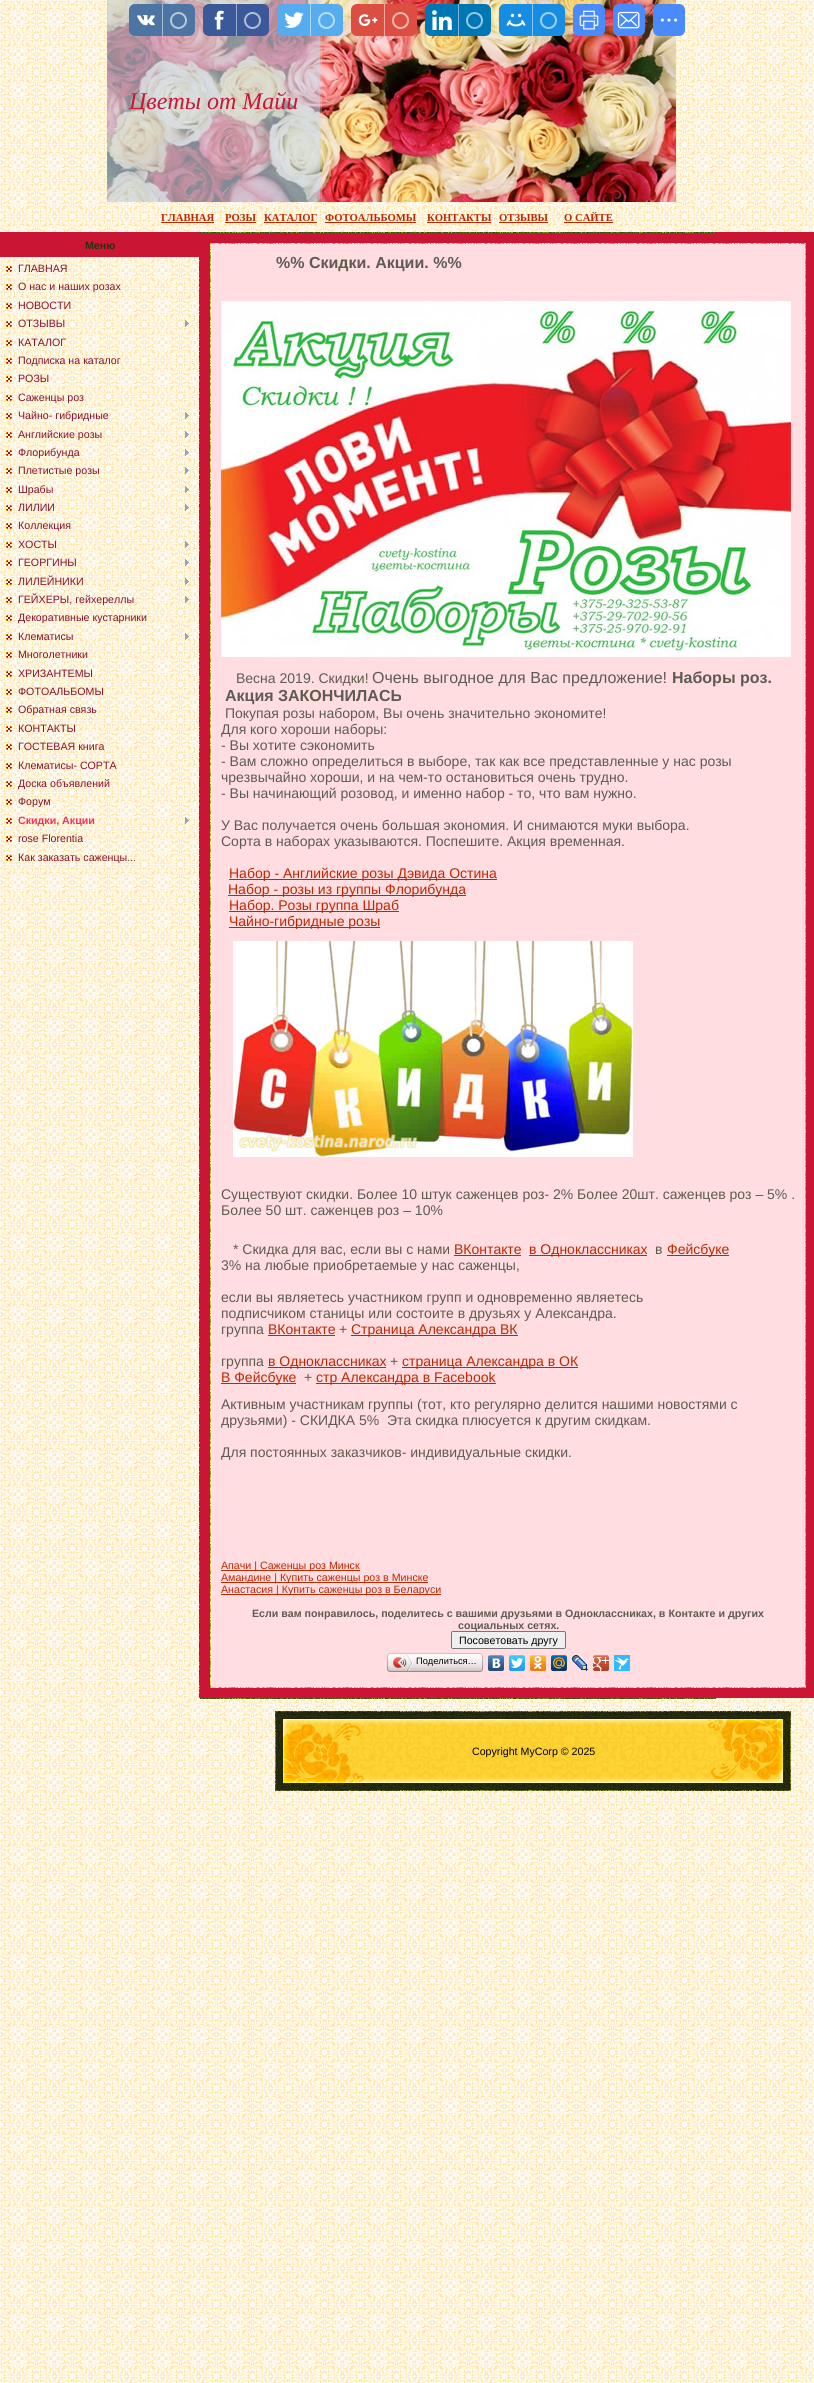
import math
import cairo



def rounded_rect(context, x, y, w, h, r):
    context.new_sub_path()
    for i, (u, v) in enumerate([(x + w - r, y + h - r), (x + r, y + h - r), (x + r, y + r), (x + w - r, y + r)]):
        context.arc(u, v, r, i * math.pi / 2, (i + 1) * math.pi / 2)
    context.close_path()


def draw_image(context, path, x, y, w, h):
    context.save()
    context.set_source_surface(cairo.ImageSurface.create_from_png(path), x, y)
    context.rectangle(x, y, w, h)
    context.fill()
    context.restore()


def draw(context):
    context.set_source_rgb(1, 1, 1)
    context.paint()
    draw_image(context, "images/1.png", 0, 0, 814, 2383)
    draw_image(context, "images/11.png", 107, 0, 214, 202)
    context.set_source_rgb(77 / 255, 117 / 255, 163 / 255)
    rounded_rect(context, 129, 4, 66, 32, 6)
    context.fill()
    draw_image(context, "images/2.png", 137, 15, 18, 11)
    context.set_source_rgb(166 / 255, 186 / 255, 209 / 255)
    context.rectangle(162, 4, 1, 32)
    context.fill()
    context.arc(178.5, 20.5, 7.5, 0, 2 * math.pi)
    context.set_source_rgb(184 / 255, 200 / 255, 218 / 255)
    context.stroke()
    context.set_source_rgb(59 / 255, 89 / 255, 152 / 255)
    rounded_rect(context, 203, 4, 66, 32, 6)
    context.fill()
    draw_image(context, "images/3.png", 214, 10, 10, 20)
    context.set_source_rgb(157 / 255, 172 / 255, 204 / 255)
    context.rectangle(236, 4, 1, 32)
    context.fill()
    context.arc(252.5, 20.5, 7.5, 0, 2 * math.pi)
    context.set_source_rgb(177 / 255, 189 / 255, 214 / 255)
    context.stroke()
    draw_image(context, "images/12.png", 321, 0, 355, 202)
    context.set_source_rgb(85 / 255, 172 / 255, 238 / 255)
    rounded_rect(context, 277, 4, 66, 32, 6)
    context.fill()
    draw_image(context, "images/4.png", 284, 12, 20, 16)
    context.set_source_rgb(170 / 255, 214 / 255, 247 / 255)
    context.rectangle(310, 4, 1, 32)
    context.fill()
    context.arc(326.5, 20.5, 7.5, 0, 2 * math.pi)
    context.set_source_rgb(187 / 255, 222 / 255, 248 / 255)
    context.stroke()
    context.set_source_rgb(220 / 255, 78 / 255, 65 / 255)
    rounded_rect(context, 351, 4, 66, 32, 6)
    context.fill()
    draw_image(context, "images/5.png", 358, 14, 20, 12)
    context.set_source_rgb(238 / 255, 167 / 255, 160 / 255)
    context.rectangle(384, 4, 1, 32)
    context.fill()
    context.arc(400.5, 20.5, 7.5, 0, 2 * math.pi)
    context.set_source_rgb(241 / 255, 184 / 255, 179 / 255)
    context.stroke()
    context.set_source_rgb(0, 119 / 255, 181 / 255)
    rounded_rect(context, 425, 4, 66, 32, 6)
    context.fill()
    draw_image(context, "images/6.png", 432, 10, 20, 20)
    context.set_source_rgb(128 / 255, 187 / 255, 218 / 255)
    context.rectangle(458, 4, 1, 32)
    context.fill()
    context.arc(474.5, 20.5, 7.5, 0, 2 * math.pi)
    context.set_source_rgb(153 / 255, 201 / 255, 225 / 255)
    context.stroke()
    context.set_source_rgb(22 / 255, 141 / 255, 226 / 255)
    rounded_rect(context, 499, 4, 66, 32, 6)
    context.fill()
    draw_image(context, "images/7.png", 506, 13, 20, 14)
    context.set_source_rgb(139 / 255, 198 / 255, 241 / 255)
    context.rectangle(532, 4, 1, 32)
    context.fill()
    context.arc(548.5, 20.5, 7.5, 0, 2 * math.pi)
    context.set_source_rgb(162 / 255, 209 / 255, 243 / 255)
    context.stroke()
    context.set_source_rgb(73 / 255, 139 / 255, 250 / 255)
    rounded_rect(context, 573, 4, 32, 32, 6)
    context.fill()
    draw_image(context, "images/8.png", 579, 10, 20, 20)
    rounded_rect(context, 613, 4, 32, 32, 6)
    context.fill()
    draw_image(context, "images/9.png", 617, 11, 23, 18)
    rounded_rect(context, 653, 4, 32, 32, 6)
    context.fill()
    draw_image(context, "images/10.png", 660, 18, 18, 4)
    context.set_source_rgb(190 / 255, 39 / 255, 0)
    context.rectangle(161, 222, 53, 1)
    context.fill()
    context.rectangle(225, 222, 31, 1)
    context.fill()
    context.rectangle(264, 222, 53, 1)
    context.fill()
    context.rectangle(325, 222, 91, 1)
    context.fill()
    context.rectangle(427, 222, 64, 1)
    context.fill()
    context.rectangle(499, 222, 49, 1)
    context.fill()
    context.rectangle(564, 222, 49, 1)
    context.fill()
    draw_image(context, "images/13.png", 199, 257, 1, 1441)
    context.set_source_rgb(202 / 255, 22 / 255, 52 / 255)
    context.rectangle(0, 232, 200, 25)
    context.fill()
    draw_image(context, "images/14.png", 6, 266, 6, 6)
    draw_image(context, "images/15.png", 6, 284, 6, 6)
    draw_image(context, "images/16.png", 6, 303, 6, 6)
    draw_image(context, "images/17.png", 6, 321, 6, 6)
    draw_image(context, "images/18.png", 185, 320, 4, 7)
    draw_image(context, "images/19.png", 6, 340, 6, 6)
    draw_image(context, "images/20.png", 6, 358, 6, 6)
    draw_image(context, "images/19.png", 6, 376, 6, 6)
    draw_image(context, "images/21.png", 6, 395, 6, 6)
    draw_image(context, "images/22.png", 6, 413, 6, 6)
    draw_image(context, "images/23.png", 185, 412, 4, 7)
    draw_image(context, "images/24.png", 6, 432, 6, 6)
    draw_image(context, "images/25.png", 185, 431, 4, 7)
    draw_image(context, "images/26.png", 6, 450, 6, 6)
    draw_image(context, "images/27.png", 185, 449, 4, 7)
    draw_image(context, "images/24.png", 6, 468, 6, 6)
    draw_image(context, "images/25.png", 185, 467, 4, 7)
    draw_image(context, "images/28.png", 6, 487, 6, 6)
    draw_image(context, "images/29.png", 185, 486, 4, 7)
    draw_image(context, "images/30.png", 6, 505, 6, 6)
    draw_image(context, "images/31.png", 185, 504, 4, 7)
    draw_image(context, "images/28.png", 6, 523, 6, 6)
    draw_image(context, "images/32.png", 6, 542, 6, 6)
    draw_image(context, "images/33.png", 185, 541, 4, 7)
    draw_image(context, "images/34.png", 6, 560, 6, 6)
    draw_image(context, "images/35.png", 185, 559, 4, 7)
    draw_image(context, "images/36.png", 6, 579, 6, 6)
    draw_image(context, "images/37.png", 185, 578, 4, 7)
    draw_image(context, "images/38.png", 6, 597, 6, 6)
    draw_image(context, "images/39.png", 185, 596, 4, 7)
    draw_image(context, "images/36.png", 6, 615, 6, 6)
    draw_image(context, "images/40.png", 6, 634, 6, 6)
    draw_image(context, "images/41.png", 185, 633, 4, 7)
    draw_image(context, "images/42.png", 6, 652, 6, 6)
    draw_image(context, "images/43.png", 6, 671, 6, 6)
    draw_image(context, "images/44.png", 6, 689, 6, 6)
    draw_image(context, "images/43.png", 6, 707, 6, 6)
    draw_image(context, "images/45.png", 6, 726, 6, 6)
    draw_image(context, "images/46.png", 6, 744, 6, 6)
    draw_image(context, "images/47.png", 6, 763, 6, 6)
    draw_image(context, "images/48.png", 6, 781, 6, 6)
    draw_image(context, "images/47.png", 6, 799, 6, 6)
    draw_image(context, "images/49.png", 6, 818, 6, 6)
    draw_image(context, "images/50.png", 185, 817, 4, 7)
    draw_image(context, "images/51.png", 6, 836, 6, 6)
    draw_image(context, "images/52.png", 6, 855, 6, 6)
    context.rectangle(200, 232, 614, 1466)
    context.fill()
    draw_image(context, "images/53.png", 200, 232, 516, 1)
    draw_image(context, "images/54.png", 210, 243, 596, 1445)
    context.set_source_rgb(1, 221 / 255, 225 / 255)
    context.rectangle(211, 244, 594, 1443)
    context.fill()
    draw_image(context, "images/55.png", 221, 301, 570, 356)
    context.set_source_rgb(190 / 255, 39 / 255, 0)
    context.rectangle(229, 879, 268, 1)
    context.fill()
    context.rectangle(228, 895, 238, 1)
    context.fill()
    context.rectangle(229, 911, 170, 1)
    context.fill()
    context.rectangle(229, 927, 151, 1)
    context.fill()
    draw_image(context, "images/56.png", 233, 941, 400, 216)
    context.rectangle(454, 1255, 67, 1)
    context.fill()
    context.rectangle(529, 1255, 118, 1)
    context.fill()
    context.rectangle(667, 1255, 62, 1)
    context.fill()
    context.rectangle(268, 1335, 67, 1)
    context.fill()
    context.rectangle(351, 1335, 167, 1)
    context.fill()
    context.rectangle(268, 1367, 118, 1)
    context.fill()
    context.rectangle(402, 1367, 176, 1)
    context.fill()
    context.rectangle(221, 1383, 75, 1)
    context.fill()
    context.rectangle(316, 1383, 180, 1)
    context.fill()
    context.rectangle(221, 1570, 139, 1)
    context.fill()
    context.rectangle(221, 1582, 207, 1)
    context.fill()
    context.rectangle(221, 1594, 220, 1)
    context.fill()
    draw_image(context, "images/57.png", 390, 1653, 90, 19)
    draw_image(context, "images/58.png", 387, 1653, 3, 19)
    draw_image(context, "images/59.png", 393, 1654, 20, 17)
    draw_image(context, "images/60.png", 480, 1653, 3, 19)
    draw_image(context, "images/61.png", 488, 1655, 16, 16)
    draw_image(context, "images/62.png", 509, 1655, 16, 16)
    draw_image(context, "images/63.png", 530, 1655, 16, 16)
    draw_image(context, "images/64.png", 551, 1655, 16, 16)
    draw_image(context, "images/65.png", 572, 1655, 16, 16)
    draw_image(context, "images/66.png", 593, 1655, 16, 16)
    draw_image(context, "images/67.png", 614, 1655, 16, 16)
    draw_image(context, "images/53.png", 200, 1698, 516, 1)
    draw_image(context, "images/68.png", 275, 1711, 516, 80)
    context.select_font_face("Liberation Serif", cairo.FontSlant.ITALIC)
    context.set_font_size(24)
    context.set_source_rgb(202 / 255, 22 / 255, 52 / 255)
    context.move_to(129, 109)
    context.show_text("Цветы от Майи")
    context.select_font_face("Liberation Serif", cairo.FontSlant.NORMAL, cairo.FontWeight.BOLD)
    context.set_font_size(10.65)
    context.set_source_rgb(190 / 255, 39 / 255, 0)
    context.move_to(161, 221)
    context.show_text("ГЛАВНАЯ")
    context.move_to(225, 221)
    context.show_text("РОЗЫ")
    context.move_to(264, 221)
    context.show_text("КАТАЛОГ")
    context.move_to(325, 221)
    context.show_text("ФОТОАЛЬБОМЫ")
    context.move_to(427, 221)
    context.show_text("КОНТАКТЫ")
    context.move_to(499, 221)
    context.show_text("ОТЗЫВЫ")
    context.move_to(564, 221)
    context.show_text("О САЙТЕ")
    context.select_font_face("Liberation Sans", cairo.FontSlant.NORMAL, cairo.FontWeight.BOLD)
    context.set_source_rgb(42 / 255, 46 / 255, 18 / 255)
    context.move_to(85, 249)
    context.show_text("Меню")
    context.select_font_face("Liberation Sans")
    context.set_source_rgb(134 / 255, 17 / 255, 47 / 255)
    context.move_to(18, 272)
    context.show_text("ГЛАВНАЯ")
    context.move_to(18, 290)
    context.show_text("О нас и наших розах")
    context.move_to(18, 309)
    context.show_text("НОВОСТИ")
    context.move_to(18, 327)
    context.show_text("ОТЗЫВЫ")
    context.move_to(18, 346)
    context.show_text("КАТАЛОГ")
    context.move_to(18, 364)
    context.show_text("Подписка на каталог")
    context.move_to(18, 382)
    context.show_text("РОЗЫ")
    context.move_to(18, 401)
    context.show_text("Саженцы роз")
    context.move_to(18, 419)
    context.show_text("Чайно- гибридные")
    context.move_to(18, 438)
    context.show_text("Английские розы")
    context.move_to(18, 456)
    context.show_text("Флорибунда")
    context.move_to(18, 474)
    context.show_text("Плетистые розы")
    context.move_to(18, 493)
    context.show_text("Шрабы")
    context.move_to(18, 511)
    context.show_text("ЛИЛИИ")
    context.move_to(18, 529)
    context.show_text("Коллекция")
    context.move_to(18, 548)
    context.show_text("ХОСТЫ")
    context.move_to(18, 566)
    context.show_text("ГЕОРГИНЫ")
    context.move_to(18, 585)
    context.show_text("ЛИЛЕЙНИКИ")
    context.move_to(18, 603)
    context.show_text("ГЕЙХЕРЫ, гейхереллы")
    context.move_to(18, 621)
    context.show_text("Декоративные кустарники")
    context.move_to(18, 640)
    context.show_text("Клематисы")
    context.move_to(18, 658)
    context.show_text("Многолетники")
    context.move_to(18, 677)
    context.show_text("ХРИЗАНТЕМЫ")
    context.move_to(18, 695)
    context.show_text("ФОТОАЛЬБОМЫ")
    context.move_to(18, 713)
    context.show_text("Обратная связь")
    context.move_to(18, 732)
    context.show_text("КОНТАКТЫ")
    context.move_to(18, 750)
    context.show_text("ГОСТЕВАЯ книга")
    context.move_to(18, 769)
    context.show_text("Клематисы- СОРТА")
    context.move_to(18, 787)
    context.show_text("Доска объявлений")
    context.move_to(18, 805)
    context.show_text("Форум")
    context.select_font_face("Liberation Sans", cairo.FontSlant.NORMAL, cairo.FontWeight.BOLD)
    context.set_source_rgb(251 / 255, 45 / 255, 98 / 255)
    context.move_to(18, 824)
    context.show_text("Скидки, Акции")
    context.select_font_face("Liberation Sans")
    context.set_source_rgb(134 / 255, 17 / 255, 47 / 255)
    context.move_to(18, 842)
    context.show_text("rose Florentia")
    context.move_to(18, 861)
    context.show_text("Как заказать саженцы...")
    context.select_font_face("Liberation Sans", cairo.FontSlant.NORMAL, cairo.FontWeight.BOLD)
    context.set_font_size(16)
    context.set_source_rgb(94 / 255, 92 / 255, 78 / 255)
    context.move_to(276, 268)
    context.show_text("%% Скидки. Акции. %%")
    context.select_font_face("Liberation Sans")
    context.set_font_size(14)
    context.move_to(236, 683)
    context.show_text("Весна 2019. Скидки!")
    context.set_font_size(16)
    context.move_to(372, 683)
    context.show_text("Очень выгодное для Вас предложение!")
    context.select_font_face("Liberation Sans", cairo.FontSlant.NORMAL, cairo.FontWeight.BOLD)
    context.move_to(672, 683)
    context.show_text("Наборы роз.")
    context.move_to(225, 701)
    context.show_text("Акция ЗАКОНЧИЛАСЬ")
    context.select_font_face("Liberation Sans")
    context.set_font_size(14)
    context.move_to(225, 718)
    context.show_text("Покупая розы набором, Вы очень значительно экономите!")
    context.move_to(221, 734)
    context.show_text("Для кого хороши наборы:")
    context.move_to(221, 750)
    context.show_text("- Вы хотите сэкономить")
    context.move_to(221, 766)
    context.show_text("- Вам сложно определиться в выборе, так как все представленные у нас розы")
    context.move_to(221, 782)
    context.show_text("чрезвычайно хороши, и на чем-то остановиться очень трудно.")
    context.move_to(221, 798)
    context.show_text("- Вы начинающий розовод, и именно набор - то, что вам нужно.")
    context.move_to(221, 830)
    context.show_text("У Вас получается очень большая экономия. И снимаются муки выбора.")
    context.move_to(221, 846)
    context.show_text("Сорта в наборах указываются. Поспешите. Акция временная.")
    context.set_source_rgb(190 / 255, 39 / 255, 0)
    context.move_to(229, 878)
    context.show_text("Набор - Английские розы Дэвида Остина")
    context.move_to(228, 894)
    context.show_text("Набор - розы из группы Флорибунда")
    context.move_to(229, 910)
    context.show_text("Набор. Розы группа Шраб")
    context.move_to(229, 926)
    context.show_text("Чайно-гибридные розы")
    context.set_source_rgb(94 / 255, 92 / 255, 78 / 255)
    context.move_to(221, 1199)
    context.show_text("Существуют скидки. Более 10 штук саженцев роз- 2% Более 20шт. саженцев роз – 5% .")
    context.move_to(221, 1215)
    context.show_text("Более 50 шт. саженцев роз – 10%")
    context.move_to(233, 1254)
    context.show_text("* Скидка для вас, если вы с нами")
    context.set_source_rgb(190 / 255, 39 / 255, 0)
    context.move_to(454, 1254)
    context.show_text("ВКонтакте")
    context.move_to(529, 1254)
    context.show_text("в Одноклассниках")
    context.set_source_rgb(94 / 255, 92 / 255, 78 / 255)
    context.move_to(655, 1254)
    context.show_text("в")
    context.set_source_rgb(190 / 255, 39 / 255, 0)
    context.move_to(667, 1254)
    context.show_text("Фейсбуке")
    context.set_source_rgb(94 / 255, 92 / 255, 78 / 255)
    context.move_to(221, 1270)
    context.show_text("3% на любые приобретаемые у нас саженцы,")
    context.move_to(221, 1302)
    context.show_text("если вы являетесь участником групп и одновременно являетесь")
    context.move_to(221, 1318)
    context.show_text("подписчиком станицы или состоите в друзьях у Александра.")
    context.move_to(221, 1334)
    context.show_text("группа")
    context.set_source_rgb(190 / 255, 39 / 255, 0)
    context.move_to(268, 1334)
    context.show_text("ВКонтакте")
    context.set_source_rgb(94 / 255, 92 / 255, 78 / 255)
    context.move_to(339, 1334)
    context.show_text("+")
    context.set_source_rgb(190 / 255, 39 / 255, 0)
    context.move_to(351, 1334)
    context.show_text("Страница Александра ВК")
    context.set_source_rgb(94 / 255, 92 / 255, 78 / 255)
    context.move_to(221, 1366)
    context.show_text("группа")
    context.set_source_rgb(190 / 255, 39 / 255, 0)
    context.move_to(268, 1366)
    context.show_text("в Одноклассниках")
    context.set_source_rgb(94 / 255, 92 / 255, 78 / 255)
    context.move_to(390, 1366)
    context.show_text("+")
    context.set_source_rgb(190 / 255, 39 / 255, 0)
    context.move_to(402, 1366)
    context.show_text("страница Александра в ОК")
    context.move_to(221, 1382)
    context.show_text("В Фейсбуке")
    context.set_source_rgb(94 / 255, 92 / 255, 78 / 255)
    context.move_to(304, 1382)
    context.show_text("+")
    context.set_source_rgb(190 / 255, 39 / 255, 0)
    context.move_to(316, 1382)
    context.show_text("стр Александра в Facebook")
    context.set_source_rgb(94 / 255, 92 / 255, 78 / 255)
    context.move_to(221, 1409)
    context.show_text("Активным участникам группы (тот, кто регулярно делится нашими новостями с")
    context.move_to(221, 1425)
    context.show_text("друзьями) - СКИДКА 5%  Эта скидка плюсуется к другим скидкам.")
    context.move_to(221, 1457)
    context.show_text("Для постоянных заказчиков- индивидуальные скидки.")
    context.set_font_size(10.65)
    context.set_source_rgb(190 / 255, 39 / 255, 0)
    context.move_to(221, 1569)
    context.show_text("Апачи | Саженцы роз Минск")
    context.move_to(221, 1581)
    context.show_text("Амандине | Купить саженцы роз в Минске")
    context.move_to(221, 1593)
    context.show_text("Анастасия | Купить саженцы роз в Беларуси")
    context.select_font_face("Liberation Sans", cairo.FontSlant.NORMAL, cairo.FontWeight.BOLD)
    context.set_source_rgb(94 / 255, 92 / 255, 78 / 255)
    context.move_to(252, 1617)
    context.show_text("Если вам понравилось, поделитесь с вашими друзьями в Одноклассниках, в Контакте и других")
    context.move_to(458, 1629)
    context.show_text("социальных сетях.")
    context.set_source_rgb(239 / 255, 239 / 255, 239 / 255)
    rounded_rect(context, 451.5, 1631.5, 114, 17, 1.5)
    context.fill_preserve()
    context.set_source_rgb(118 / 255, 118 / 255, 118 / 255)
    context.set_line_width(1)
    context.stroke()
    context.select_font_face("Liberation Sans")
    context.set_source_rgb(0, 0, 0)
    context.move_to(459, 1644)
    context.show_text("Посоветовать другу")
    context.set_font_size(9.25)
    context.move_to(416, 1664)
    context.show_text("Поделиться…")
    context.set_font_size(10.65)
    context.move_to(472, 1755)
    context.show_text("Copyright MyCorp © 2025")


surface = cairo.ImageSurface(cairo.Format.RGB24, 814, 2383)
context = cairo.Context(surface)
options = cairo.FontOptions()
options.set_hint_metrics(cairo.HintMetrics.OFF)
options.set_hint_style(cairo.HintStyle.NONE)
context.set_font_options(options)
context.set_miter_limit(4)
draw(context)
surface.write_to_png("out.png")
